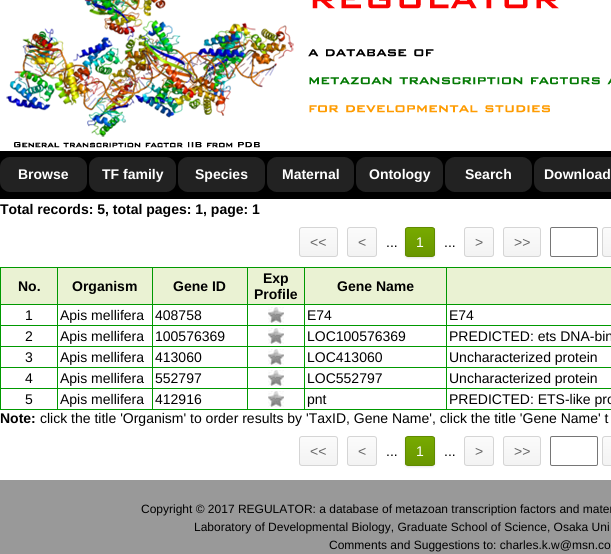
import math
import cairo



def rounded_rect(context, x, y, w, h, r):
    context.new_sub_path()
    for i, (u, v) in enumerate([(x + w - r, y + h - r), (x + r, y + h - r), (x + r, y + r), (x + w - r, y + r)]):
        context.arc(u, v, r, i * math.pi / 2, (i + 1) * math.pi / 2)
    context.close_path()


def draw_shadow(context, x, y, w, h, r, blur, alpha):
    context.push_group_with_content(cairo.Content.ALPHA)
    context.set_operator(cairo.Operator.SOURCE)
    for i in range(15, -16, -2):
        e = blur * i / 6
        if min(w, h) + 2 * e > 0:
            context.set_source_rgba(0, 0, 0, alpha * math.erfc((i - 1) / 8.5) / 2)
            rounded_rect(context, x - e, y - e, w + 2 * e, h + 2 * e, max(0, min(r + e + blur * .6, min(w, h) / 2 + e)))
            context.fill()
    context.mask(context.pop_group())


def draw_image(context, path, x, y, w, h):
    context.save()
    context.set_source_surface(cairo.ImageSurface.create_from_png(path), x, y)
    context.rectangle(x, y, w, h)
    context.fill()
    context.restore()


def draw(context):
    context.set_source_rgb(1, 1, 1)
    context.paint()
    draw_image(context, "images/1.png", 6, 0, 605, 148)
    context.set_source_rgb(0, 0, 0)
    context.rectangle(0, 151, 611, 48)
    context.fill()
    draw_image(context, "images/2.png", 0, 157, 87, 35)
    draw_image(context, "images/2.png", 89, 157, 87, 35)
    draw_image(context, "images/2.png", 178, 157, 87, 35)
    draw_image(context, "images/2.png", 267, 157, 87, 35)
    draw_image(context, "images/2.png", 356, 157, 87, 35)
    draw_image(context, "images/2.png", 445, 157, 87, 35)
    draw_image(context, "images/3.png", 534, 157, 77, 35)
    context.save()
    rounded_rect(context, 299, 227, 39, 30, 3)
    context.clip()
    gradient = cairo.LinearGradient(319, 228, 319, 256)
    gradient.add_color_stop_rgba(0, 251 / 255, 251 / 255, 251 / 255, 1)
    gradient.add_color_stop_rgba(1, 243 / 255, 243 / 255, 243 / 255, 1)
    context.set_source(gradient)
    context.rectangle(299, 228, 39, 28)
    context.fill()
    context.restore()
    rounded_rect(context, 299.5, 227.5, 38, 29, 2.5)
    context.set_source_rgb(213 / 255, 213 / 255, 213 / 255)
    context.set_line_width(1)
    context.stroke()
    context.save()
    rounded_rect(context, 347, 227, 30, 30, 3)
    context.clip()
    gradient = cairo.LinearGradient(362, 228, 362, 256)
    gradient.add_color_stop_rgba(0, 251 / 255, 251 / 255, 251 / 255, 1)
    gradient.add_color_stop_rgba(1, 243 / 255, 243 / 255, 243 / 255, 1)
    context.set_source(gradient)
    context.rectangle(347, 228, 30, 28)
    context.fill()
    context.restore()
    rounded_rect(context, 347.5, 227.5, 29, 29, 2.5)
    context.stroke()
    context.set_source_rgb(0, 0, 0)
    draw_shadow(context, 405, 228, 30, 30, 3, 1, 0.1)
    context.save()
    rounded_rect(context, 405, 227, 30, 30, 3)
    context.clip()
    gradient = cairo.LinearGradient(420, 228, 420, 256)
    gradient.add_color_stop_rgba(0, 119 / 255, 170 / 255, 0, 1)
    gradient.add_color_stop_rgba(1, 105 / 255, 150 / 255, 0, 1)
    context.set_source(gradient)
    context.rectangle(405, 228, 30, 28)
    context.fill()
    context.restore()
    rounded_rect(context, 405.5, 227.5, 29, 29, 2.5)
    context.set_source_rgb(96 / 255, 138 / 255, 0)
    context.stroke()
    context.save()
    rounded_rect(context, 464, 227, 30, 30, 3)
    context.clip()
    gradient = cairo.LinearGradient(479, 228, 479, 256)
    gradient.add_color_stop_rgba(0, 251 / 255, 251 / 255, 251 / 255, 1)
    gradient.add_color_stop_rgba(1, 243 / 255, 243 / 255, 243 / 255, 1)
    context.set_source(gradient)
    context.rectangle(464, 228, 30, 28)
    context.fill()
    context.restore()
    rounded_rect(context, 464.5, 227.5, 29, 29, 2.5)
    context.set_source_rgb(213 / 255, 213 / 255, 213 / 255)
    context.stroke()
    context.save()
    rounded_rect(context, 503, 227, 38, 30, 3)
    context.clip()
    gradient = cairo.LinearGradient(522, 228, 522, 256)
    gradient.add_color_stop_rgba(0, 251 / 255, 251 / 255, 251 / 255, 1)
    gradient.add_color_stop_rgba(1, 243 / 255, 243 / 255, 243 / 255, 1)
    context.set_source(gradient)
    context.rectangle(503, 228, 38, 28)
    context.fill()
    context.restore()
    rounded_rect(context, 503.5, 227.5, 37, 29, 2.5)
    context.stroke()
    rounded_rect(context, 550.5, 227.5, 47, 29, 1.5)
    context.set_source_rgb(118 / 255, 118 / 255, 118 / 255)
    context.stroke()
    context.save()
    rounded_rect(context, 602, 227, 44, 30, 3)
    context.clip()
    gradient = cairo.LinearGradient(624, 228, 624, 256)
    gradient.add_color_stop_rgba(0, 251 / 255, 251 / 255, 251 / 255, 1)
    gradient.add_color_stop_rgba(1, 243 / 255, 243 / 255, 243 / 255, 1)
    context.set_source(gradient)
    context.rectangle(602, 228, 9, 28)
    context.fill()
    context.restore()
    rounded_rect(context, 602.5, 227.5, 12, 29, 2.5)
    context.set_source_rgb(213 / 255, 213 / 255, 213 / 255)
    context.stroke()
    context.set_source_rgb(0, 153 / 255, 0)
    context.rectangle(0, 267, 611, 1)
    context.fill()
    context.rectangle(0, 409, 611, 1)
    context.fill()
    context.rectangle(0, 267, 1, 143)
    context.fill()
    context.set_source_rgb(234 / 255, 242 / 255, 211 / 255)
    context.rectangle(1, 268, 56, 36)
    context.fill()
    context.rectangle(58, 268, 94, 36)
    context.fill()
    context.set_source_rgb(0, 153 / 255, 0)
    context.rectangle(446, 304, 165, 1)
    context.fill()
    context.rectangle(446, 325, 165, 1)
    context.fill()
    context.rectangle(446, 346, 165, 1)
    context.fill()
    context.rectangle(446, 367, 165, 1)
    context.fill()
    context.rectangle(446, 388, 165, 1)
    context.fill()
    context.rectangle(446, 388, 1, 22)
    context.fill()
    context.rectangle(304, 388, 143, 1)
    context.fill()
    context.rectangle(446, 367, 1, 22)
    context.fill()
    context.rectangle(304, 367, 143, 1)
    context.fill()
    context.rectangle(446, 346, 1, 22)
    context.fill()
    context.rectangle(304, 346, 143, 1)
    context.fill()
    context.rectangle(446, 325, 1, 22)
    context.fill()
    context.rectangle(304, 325, 143, 1)
    context.fill()
    context.rectangle(446, 304, 1, 22)
    context.fill()
    context.rectangle(304, 304, 143, 1)
    context.fill()
    context.rectangle(304, 388, 1, 22)
    context.fill()
    context.rectangle(247, 388, 58, 1)
    context.fill()
    context.rectangle(304, 367, 1, 22)
    context.fill()
    context.rectangle(247, 367, 58, 1)
    context.fill()
    context.rectangle(304, 346, 1, 22)
    context.fill()
    context.rectangle(247, 346, 58, 1)
    context.fill()
    context.rectangle(304, 325, 1, 22)
    context.fill()
    context.rectangle(247, 325, 58, 1)
    context.fill()
    context.rectangle(304, 304, 1, 22)
    context.fill()
    context.rectangle(247, 304, 58, 1)
    context.fill()
    context.rectangle(247, 388, 1, 22)
    context.fill()
    context.rectangle(152, 388, 96, 1)
    context.fill()
    context.rectangle(247, 367, 1, 22)
    context.fill()
    context.rectangle(152, 367, 96, 1)
    context.fill()
    context.rectangle(247, 346, 1, 22)
    context.fill()
    context.rectangle(152, 346, 96, 1)
    context.fill()
    context.rectangle(247, 325, 1, 22)
    context.fill()
    context.rectangle(152, 325, 96, 1)
    context.fill()
    context.rectangle(247, 304, 1, 22)
    context.fill()
    context.rectangle(152, 304, 96, 1)
    context.fill()
    context.rectangle(152, 388, 1, 22)
    context.fill()
    context.rectangle(57, 388, 96, 1)
    context.fill()
    context.rectangle(152, 367, 1, 22)
    context.fill()
    context.rectangle(57, 367, 96, 1)
    context.fill()
    context.rectangle(152, 346, 1, 22)
    context.fill()
    context.rectangle(57, 346, 96, 1)
    context.fill()
    context.rectangle(152, 325, 1, 22)
    context.fill()
    context.rectangle(57, 325, 96, 1)
    context.fill()
    context.rectangle(152, 304, 1, 22)
    context.fill()
    context.rectangle(57, 304, 96, 1)
    context.fill()
    context.rectangle(57, 388, 1, 22)
    context.fill()
    context.rectangle(0, 388, 58, 1)
    context.fill()
    context.rectangle(57, 367, 1, 22)
    context.fill()
    context.rectangle(0, 367, 58, 1)
    context.fill()
    context.rectangle(57, 346, 1, 22)
    context.fill()
    context.rectangle(0, 346, 58, 1)
    context.fill()
    context.rectangle(57, 325, 1, 22)
    context.fill()
    context.rectangle(0, 325, 58, 1)
    context.fill()
    context.rectangle(57, 304, 1, 22)
    context.fill()
    context.rectangle(0, 304, 58, 1)
    context.fill()
    context.rectangle(57, 267, 1, 38)
    context.fill()
    context.set_source_rgb(234 / 255, 242 / 255, 211 / 255)
    context.rectangle(153, 268, 94, 36)
    context.fill()
    context.set_source_rgb(0, 153 / 255, 0)
    context.rectangle(152, 267, 1, 38)
    context.fill()
    context.set_source_rgb(234 / 255, 242 / 255, 211 / 255)
    context.rectangle(248, 268, 56, 36)
    context.fill()
    context.set_source_rgb(0, 153 / 255, 0)
    context.rectangle(247, 267, 1, 38)
    context.fill()
    context.set_source_rgb(234 / 255, 242 / 255, 211 / 255)
    context.rectangle(305, 268, 141, 36)
    context.fill()
    context.set_source_rgb(0, 153 / 255, 0)
    context.rectangle(304, 267, 1, 38)
    context.fill()
    context.set_source_rgb(234 / 255, 242 / 255, 211 / 255)
    context.rectangle(447, 268, 164, 36)
    context.fill()
    context.set_source_rgb(0, 153 / 255, 0)
    context.rectangle(446, 267, 1, 38)
    context.fill()
    draw_image(context, "images/4.png", 268, 307, 16, 16)
    draw_image(context, "images/4.png", 268, 328, 16, 16)
    draw_image(context, "images/4.png", 268, 349, 16, 16)
    draw_image(context, "images/4.png", 268, 370, 16, 16)
    draw_image(context, "images/4.png", 268, 391, 16, 16)
    context.save()
    rounded_rect(context, 299, 436, 39, 30, 3)
    context.clip()
    gradient = cairo.LinearGradient(319, 437, 319, 465)
    gradient.add_color_stop_rgba(0, 251 / 255, 251 / 255, 251 / 255, 1)
    gradient.add_color_stop_rgba(1, 243 / 255, 243 / 255, 243 / 255, 1)
    context.set_source(gradient)
    context.rectangle(299, 437, 39, 28)
    context.fill()
    context.restore()
    rounded_rect(context, 299.5, 436.5, 38, 29, 2.5)
    context.set_source_rgb(213 / 255, 213 / 255, 213 / 255)
    context.stroke()
    context.save()
    rounded_rect(context, 347, 436, 30, 30, 3)
    context.clip()
    gradient = cairo.LinearGradient(362, 437, 362, 465)
    gradient.add_color_stop_rgba(0, 251 / 255, 251 / 255, 251 / 255, 1)
    gradient.add_color_stop_rgba(1, 243 / 255, 243 / 255, 243 / 255, 1)
    context.set_source(gradient)
    context.rectangle(347, 437, 30, 28)
    context.fill()
    context.restore()
    rounded_rect(context, 347.5, 436.5, 29, 29, 2.5)
    context.stroke()
    context.set_source_rgb(0, 0, 0)
    draw_shadow(context, 405, 437, 30, 30, 3, 1, 0.1)
    context.save()
    rounded_rect(context, 405, 436, 30, 30, 3)
    context.clip()
    gradient = cairo.LinearGradient(420, 437, 420, 465)
    gradient.add_color_stop_rgba(0, 119 / 255, 170 / 255, 0, 1)
    gradient.add_color_stop_rgba(1, 105 / 255, 150 / 255, 0, 1)
    context.set_source(gradient)
    context.rectangle(405, 437, 30, 28)
    context.fill()
    context.restore()
    rounded_rect(context, 405.5, 436.5, 29, 29, 2.5)
    context.set_source_rgb(96 / 255, 138 / 255, 0)
    context.stroke()
    context.save()
    rounded_rect(context, 464, 436, 30, 30, 3)
    context.clip()
    gradient = cairo.LinearGradient(479, 437, 479, 465)
    gradient.add_color_stop_rgba(0, 251 / 255, 251 / 255, 251 / 255, 1)
    gradient.add_color_stop_rgba(1, 243 / 255, 243 / 255, 243 / 255, 1)
    context.set_source(gradient)
    context.rectangle(464, 437, 30, 28)
    context.fill()
    context.restore()
    rounded_rect(context, 464.5, 436.5, 29, 29, 2.5)
    context.set_source_rgb(213 / 255, 213 / 255, 213 / 255)
    context.stroke()
    context.save()
    rounded_rect(context, 503, 436, 38, 30, 3)
    context.clip()
    gradient = cairo.LinearGradient(522, 437, 522, 465)
    gradient.add_color_stop_rgba(0, 251 / 255, 251 / 255, 251 / 255, 1)
    gradient.add_color_stop_rgba(1, 243 / 255, 243 / 255, 243 / 255, 1)
    context.set_source(gradient)
    context.rectangle(503, 437, 38, 28)
    context.fill()
    context.restore()
    rounded_rect(context, 503.5, 436.5, 37, 29, 2.5)
    context.stroke()
    rounded_rect(context, 550.5, 436.5, 47, 29, 1.5)
    context.set_source_rgb(118 / 255, 118 / 255, 118 / 255)
    context.stroke()
    context.save()
    rounded_rect(context, 602, 436, 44, 30, 3)
    context.clip()
    gradient = cairo.LinearGradient(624, 437, 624, 465)
    gradient.add_color_stop_rgba(0, 251 / 255, 251 / 255, 251 / 255, 1)
    gradient.add_color_stop_rgba(1, 243 / 255, 243 / 255, 243 / 255, 1)
    context.set_source(gradient)
    context.rectangle(602, 437, 9, 28)
    context.fill()
    context.restore()
    rounded_rect(context, 602.5, 436.5, 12, 29, 2.5)
    context.set_source_rgb(213 / 255, 213 / 255, 213 / 255)
    context.stroke()
    context.set_source_rgb(153 / 255, 153 / 255, 153 / 255)
    context.rectangle(0, 480, 611, 74)
    context.fill()
    context.select_font_face("Liberation Sans", cairo.FontSlant.NORMAL, cairo.FontWeight.BOLD)
    context.set_font_size(14)
    context.set_source_rgb(1, 1, 1)
    context.move_to(18, 179)
    context.show_text("Browse")
    context.move_to(102, 179)
    context.show_text("TF family")
    context.move_to(195, 179)
    context.show_text("Species")
    context.move_to(282, 179)
    context.show_text("Maternal")
    context.move_to(369, 179)
    context.show_text("Ontology")
    context.move_to(465, 179)
    context.show_text("Search")
    context.move_to(544, 179)
    context.show_text("Download")
    context.set_source_rgb(0, 0, 0)
    context.move_to(0, 214)
    context.show_text("Total records: 5, total pages: 1, page: 1")
    context.select_font_face("Liberation Sans")
    context.set_source_rgb(102 / 255, 102 / 255, 102 / 255)
    context.move_to(310, 247)
    context.show_text("<<")
    context.move_to(358, 247)
    context.show_text("<")
    context.set_source_rgb(0, 0, 0)
    context.move_to(386, 247)
    context.show_text("...")
    context.set_source_rgb(1, 1, 1)
    context.move_to(416, 247)
    context.show_text("1")
    context.set_source_rgb(0, 0, 0)
    context.move_to(444, 247)
    context.show_text("...")
    context.set_source_rgb(102 / 255, 102 / 255, 102 / 255)
    context.move_to(475, 247)
    context.show_text(">")
    context.move_to(514, 247)
    context.show_text(">>")
    context.select_font_face("Liberation Sans", cairo.FontSlant.NORMAL, cairo.FontWeight.BOLD)
    context.set_source_rgb(0, 0, 0)
    context.move_to(18, 291)
    context.show_text("No.")
    context.move_to(72, 291)
    context.show_text("Organism")
    context.move_to(173, 291)
    context.show_text("Gene ID")
    context.move_to(263, 283)
    context.show_text("Exp")
    context.move_to(254, 299)
    context.show_text("Profile")
    context.move_to(337, 291)
    context.show_text("Gene Name")
    context.select_font_face("Liberation Sans")
    context.move_to(25, 320)
    context.show_text("1")
    context.move_to(60, 320)
    context.show_text("Apis mellifera")
    context.move_to(155, 320)
    context.show_text("408758")
    context.move_to(307, 320)
    context.show_text("E74")
    context.move_to(449, 320)
    context.show_text("E74")
    context.move_to(25, 341)
    context.show_text("2")
    context.move_to(60, 341)
    context.show_text("Apis mellifera")
    context.move_to(155, 341)
    context.show_text("100576369")
    context.move_to(307, 341)
    context.show_text("LOC100576369")
    context.move_to(449, 341)
    context.show_text("PREDICTED: ets DNA-bin")
    context.move_to(25, 362)
    context.show_text("3")
    context.move_to(60, 362)
    context.show_text("Apis mellifera")
    context.move_to(155, 362)
    context.show_text("413060")
    context.move_to(307, 362)
    context.show_text("LOC413060")
    context.move_to(449, 362)
    context.show_text("Uncharacterized protein")
    context.move_to(25, 383)
    context.show_text("4")
    context.move_to(60, 383)
    context.show_text("Apis mellifera")
    context.move_to(155, 383)
    context.show_text("552797")
    context.move_to(307, 383)
    context.show_text("LOC552797")
    context.move_to(449, 383)
    context.show_text("Uncharacterized protein")
    context.move_to(25, 404)
    context.show_text("5")
    context.move_to(60, 404)
    context.show_text("Apis mellifera")
    context.move_to(155, 404)
    context.show_text("412916")
    context.move_to(307, 404)
    context.show_text("pnt")
    context.move_to(449, 404)
    context.show_text("PREDICTED: ETS-like pro")
    context.select_font_face("Liberation Sans", cairo.FontSlant.NORMAL, cairo.FontWeight.BOLD)
    context.move_to(0, 423)
    context.show_text("Note:")
    context.select_font_face("Liberation Sans")
    context.move_to(40, 423)
    context.show_text("click the title 'Organism' to order results by 'TaxID, Gene Name', click the title 'Gene Name' t")
    context.set_source_rgb(102 / 255, 102 / 255, 102 / 255)
    context.move_to(310, 456)
    context.show_text("<<")
    context.move_to(358, 456)
    context.show_text("<")
    context.set_source_rgb(0, 0, 0)
    context.move_to(386, 456)
    context.show_text("...")
    context.set_source_rgb(1, 1, 1)
    context.move_to(416, 456)
    context.show_text("1")
    context.set_source_rgb(0, 0, 0)
    context.move_to(444, 456)
    context.show_text("...")
    context.set_source_rgb(102 / 255, 102 / 255, 102 / 255)
    context.move_to(475, 456)
    context.show_text(">")
    context.move_to(514, 456)
    context.show_text(">>")
    context.set_font_size(12)
    context.set_source_rgb(0, 0, 0)
    context.move_to(141, 513)
    context.show_text("Copyright © 2017 REGULATOR: a database of metazoan transcription factors and mater")
    context.move_to(194, 531)
    context.show_text("Laboratory of Developmental Biology, Graduate School of Science, Osaka Uni")
    context.move_to(329, 549)
    context.show_text("Comments and Suggestions to: charles.k.w@msn.co")


surface = cairo.ImageSurface(cairo.Format.RGB24, 611, 554)
context = cairo.Context(surface)
options = cairo.FontOptions()
options.set_hint_metrics(cairo.HintMetrics.OFF)
options.set_hint_style(cairo.HintStyle.NONE)
context.set_font_options(options)
context.set_miter_limit(4)
draw(context)
surface.write_to_png("out.png")
